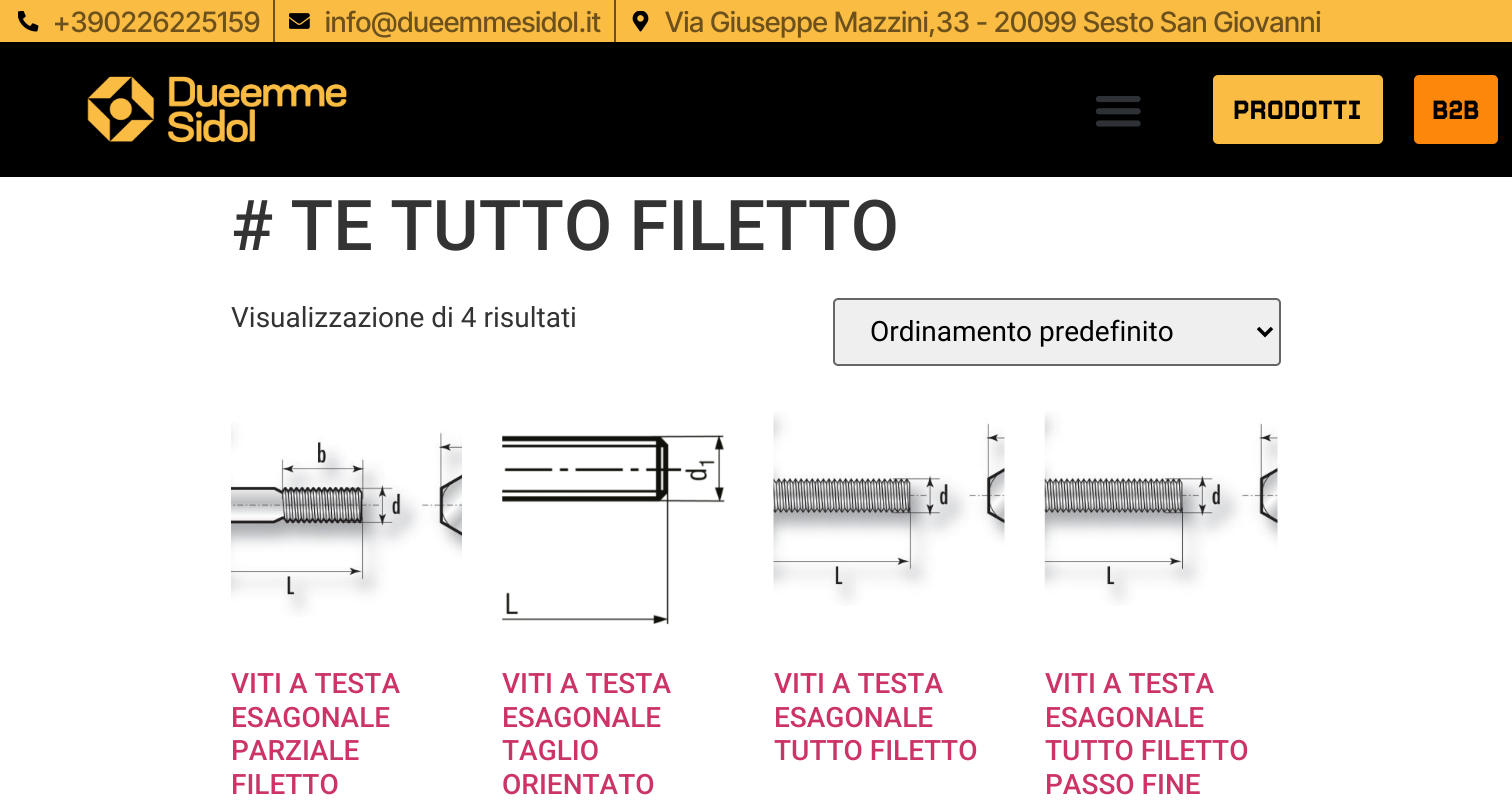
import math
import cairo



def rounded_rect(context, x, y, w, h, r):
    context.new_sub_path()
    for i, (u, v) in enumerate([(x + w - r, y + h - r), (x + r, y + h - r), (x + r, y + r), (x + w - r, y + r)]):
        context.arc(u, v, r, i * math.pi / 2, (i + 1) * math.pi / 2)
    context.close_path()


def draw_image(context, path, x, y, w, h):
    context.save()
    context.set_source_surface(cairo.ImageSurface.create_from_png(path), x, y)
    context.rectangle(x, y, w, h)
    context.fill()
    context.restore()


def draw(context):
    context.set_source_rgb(1, 1, 1)
    context.paint()
    context.set_source_rgb(251 / 255, 188 / 255, 67 / 255)
    context.rectangle(0, 0, 1512, 42)
    context.fill()
    draw_image(context, "images/1.png", 18, 11, 21, 21)
    context.set_source_rgb(109 / 255, 81 / 255, 29 / 255)
    context.rectangle(273, 0, 2, 42)
    context.fill()
    draw_image(context, "images/2.png", 289, 13, 21, 16)
    context.rectangle(614, 0, 2, 42)
    context.fill()
    draw_image(context, "images/3.png", 632, 11, 17, 21)
    context.set_source_rgb(0, 0, 0)
    context.rectangle(0, 42, 1512, 135)
    context.fill()
    draw_image(context, "images/4.png", 87, 76, 260, 67)
    draw_image(context, "images/5.png", 1095, 96, 46, 31)
    context.set_source_rgb(251 / 255, 188 / 255, 67 / 255)
    rounded_rect(context, 1213, 75, 170, 69, 5)
    context.fill()
    context.set_source_rgb(252 / 255, 135 / 255, 10 / 255)
    rounded_rect(context, 1414, 75, 84, 69, 5)
    context.fill()
    context.set_source_rgb(239 / 255, 239 / 255, 239 / 255)
    rounded_rect(context, 834, 299, 446, 66, 4)
    context.fill_preserve()
    context.set_source_rgb(102 / 255, 102 / 255, 102 / 255)
    context.stroke()
    context.new_path()
    context.move_to(1258, 328)
    context.line_to(1265, 335)
    context.line_to(1272, 328)
    context.set_source_rgb(0, 0, 0)
    context.set_line_width(3.5)
    context.stroke()
    draw_image(context, "images/6.png", 231, 422, 231, 195)
    draw_image(context, "images/7.png", 502, 434, 223, 191)
    draw_image(context, "images/8.png", 773, 411, 232, 195)
    draw_image(context, "images/9.png", 1044, 411, 234, 195)
    context.select_font_face("Inter Tight Medium")
    context.set_font_size(28)
    context.set_source_rgb(109 / 255, 81 / 255, 29 / 255)
    context.move_to(53, 32)
    context.show_text("+390226225159")
    context.move_to(325, 32)
    context.show_text("info@dueemmesidol.it")
    context.move_to(665, 32)
    context.show_text("Via Giuseppe Mazzini,33 - 20099 Sesto San Giovanni")
    context.select_font_face("Tourney Black")
    context.set_font_size(26.25)
    context.set_source_rgb(0, 0, 0)
    context.move_to(1233, 119)
    context.show_text("PRODOTTI")
    context.move_to(1432, 119)
    context.show_text("B2B")
    context.select_font_face("Roboto Medium")
    context.set_font_size(70)
    context.set_source_rgb(51 / 255, 51 / 255, 51 / 255)
    context.move_to(231, 250)
    context.show_text("# TE TUTTO FILETTO")
    context.select_font_face("Roboto")
    context.set_font_size(28)
    context.move_to(231, 327)
    context.show_text("Visualizzazione di 4 risultati")
    context.set_source_rgb(0, 0, 0)
    context.move_to(870, 341)
    context.show_text("Ordinamento predefinito")
    context.select_font_face("Roboto Medium")
    context.set_source_rgb(204 / 255, 51 / 255, 102 / 255)
    context.move_to(231, 693)
    context.show_text("VITI A TESTA")
    context.move_to(231, 727)
    context.show_text("ESAGONALE")
    context.move_to(231, 760)
    context.show_text("PARZIALE")
    context.move_to(231, 794)
    context.show_text("FILETTO")
    context.move_to(502, 693)
    context.show_text("VITI A TESTA")
    context.move_to(502, 727)
    context.show_text("ESAGONALE")
    context.move_to(502, 760)
    context.show_text("TAGLIO")
    context.move_to(502, 794)
    context.show_text("ORIENTATO")
    context.move_to(774, 693)
    context.show_text("VITI A TESTA")
    context.move_to(774, 727)
    context.show_text("ESAGONALE")
    context.move_to(774, 760)
    context.show_text("TUTTO FILETTO")
    context.move_to(1045, 693)
    context.show_text("VITI A TESTA")
    context.move_to(1045, 727)
    context.show_text("ESAGONALE")
    context.move_to(1045, 760)
    context.show_text("TUTTO FILETTO")
    context.move_to(1045, 794)
    context.show_text("PASSO FINE")


surface = cairo.ImageSurface(cairo.Format.RGB24, 1512, 810)
context = cairo.Context(surface)
options = cairo.FontOptions()
options.set_hint_metrics(cairo.HintMetrics.OFF)
options.set_hint_style(cairo.HintStyle.NONE)
context.set_font_options(options)
context.set_miter_limit(4)
draw(context)
surface.write_to_png("out.png")
